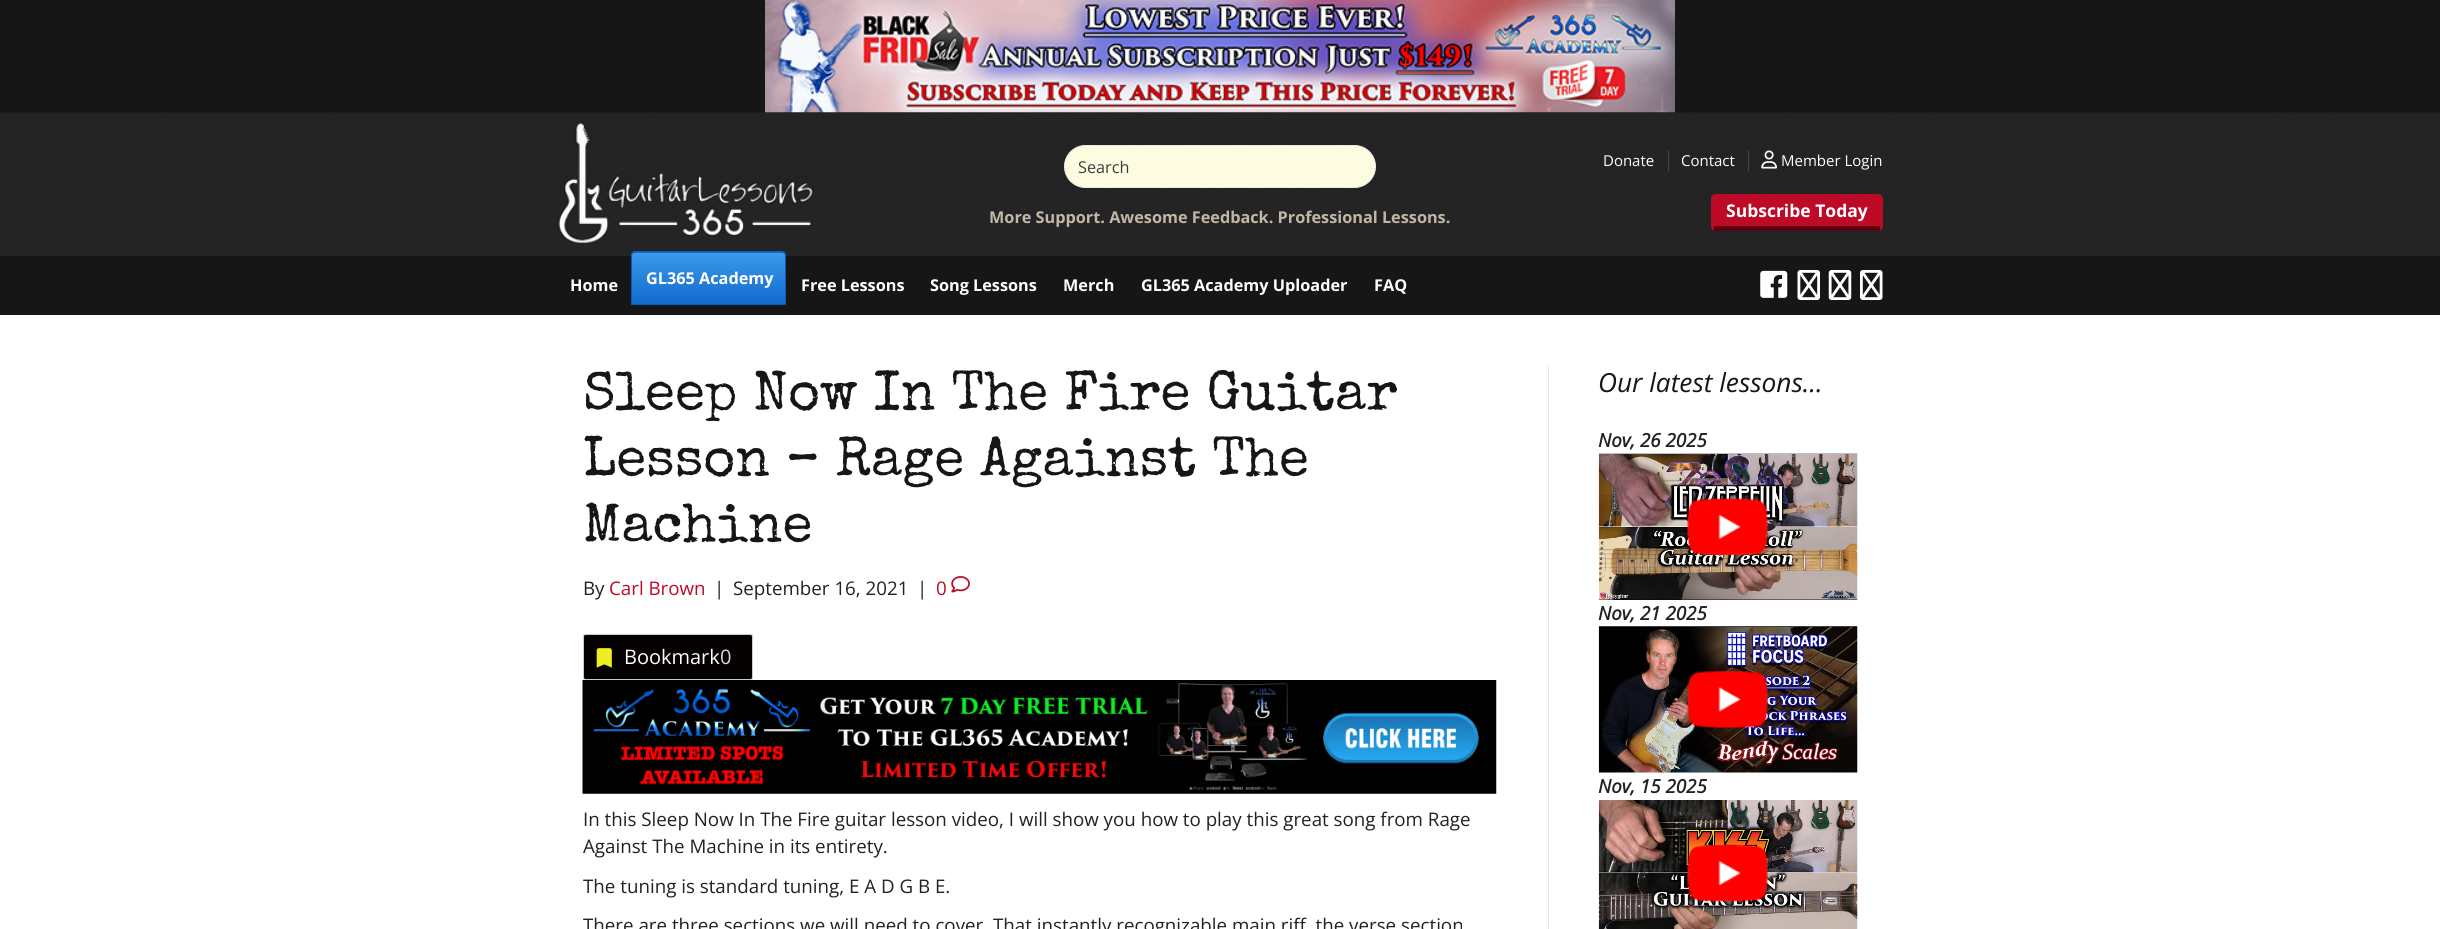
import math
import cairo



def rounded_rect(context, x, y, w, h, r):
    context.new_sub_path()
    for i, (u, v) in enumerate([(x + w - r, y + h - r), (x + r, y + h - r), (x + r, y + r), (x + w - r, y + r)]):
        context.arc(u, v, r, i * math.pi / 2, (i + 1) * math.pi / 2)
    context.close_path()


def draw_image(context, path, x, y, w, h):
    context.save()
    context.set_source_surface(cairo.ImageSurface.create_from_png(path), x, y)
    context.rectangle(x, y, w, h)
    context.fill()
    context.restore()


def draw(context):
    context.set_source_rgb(22 / 255, 22 / 255, 22 / 255)
    context.paint()
    draw_image(context, "images/1.png", 765, 0, 910, 113)
    context.set_source_rgb(36 / 255, 36 / 255, 36 / 255)
    context.rectangle(0, 208, 2440, 48)
    context.fill()
    draw_image(context, "images/2.png", 0, 112, 2440, 96)
    draw_image(context, "images/3.png", 557, 122, 257, 122)
    context.set_source_rgb(254 / 255, 252 / 255, 224 / 255)
    rounded_rect(context, 1064.5, 145.5, 311, 42, 21)
    context.fill_preserve()
    context.set_source_rgb(234 / 255, 234 / 255, 231 / 255)
    context.set_line_width(1)
    context.stroke()
    context.set_source_rgba(1, 1, 1, 0.15)
    context.rectangle(1668, 150, 1, 21)
    context.fill()
    context.set_source_rgb(69 / 255, 69 / 255, 69 / 255)
    context.rectangle(1748, 150, 1, 21)
    context.fill()
    draw_image(context, "images/4.png", 1761, 150, 16, 19)
    context.set_source_rgb(189 / 255, 10 / 255, 38 / 255)
    rounded_rect(context, 1711, 194, 172, 37, 5)
    context.fill()
    context.set_source_rgb(93 / 255, 0, 14 / 255)
    context.rectangle(1714, 226, 166, 5)
    context.fill()
    context.save()
    context.new_path()
    context.move_to(636, 251)
    context.line_to(781, 251)
    context.curve_to(784, 251, 786, 253, 786, 256)
    context.line_to(786, 305)
    context.line_to(631, 305)
    context.line_to(631, 256)
    context.curve_to(631, 253, 633, 251, 636, 251)
    context.close_path()
    context.clip()
    gradient = cairo.LinearGradient(709, 201, 709, 253)
    gradient.add_color_stop_rgba(0, 59 / 255, 153 / 255, 234 / 255, 1)
    gradient.add_color_stop_rgba(1, 18 / 255, 106 / 255, 205 / 255, 1)
    context.set_source(gradient)
    context.rectangle(631, 251, 155, 2)
    context.fill()
    gradient = cairo.LinearGradient(709, 253, 709, 304)
    gradient.add_color_stop_rgba(0, 59 / 255, 153 / 255, 234 / 255, 1)
    gradient.add_color_stop_rgba(1, 18 / 255, 106 / 255, 205 / 255, 1)
    context.set_source(gradient)
    context.rectangle(631, 253, 155, 51)
    context.fill()
    context.restore()
    context.new_path()
    context.move_to(636, 251.5)
    context.line_to(781, 251.5)
    context.curve_to(783.5, 251.5, 785.5, 253.5, 785.5, 256)
    context.line_to(785.5, 304.5)
    context.line_to(631.5, 304.5)
    context.line_to(631.5, 256)
    context.curve_to(631.5, 253.5, 633.5, 251.5, 636, 251.5)
    context.close_path()
    context.set_source_rgb(5 / 255, 94 / 255, 194 / 255)
    context.stroke()
    draw_image(context, "images/5.png", 1760, 270, 28, 28)
    draw_image(context, "images/6.png", 1797, 270, 23, 30)
    draw_image(context, "images/7.png", 1828, 270, 24, 30)
    draw_image(context, "images/8.png", 1860, 270, 23, 30)
    context.set_source_rgb(1, 1, 1)
    context.rectangle(0, 315, 2440, 614)
    context.fill()
    context.set_source_rgb(230 / 255, 230 / 255, 230 / 255)
    context.rectangle(1548, 365, 1, 564)
    context.fill()
    draw_image(context, "images/9.png", 951, 576, 19, 17)
    context.set_source_rgb(5 / 255, 1 / 255, 1 / 255)
    rounded_rect(context, 583.5, 634.5, 169, 45, 2)
    context.fill_preserve()
    context.set_source_rgb(204 / 255, 204 / 255, 204 / 255)
    context.stroke()
    draw_image(context, "images/10.png", 596, 648, 16, 20)
    draw_image(context, "images/11.png", 582, 680, 915, 114)
    draw_image(context, "images/12.png", 1598, 453, 260, 147)
    draw_image(context, "images/13.png", 1687, 498, 81, 57)
    draw_image(context, "images/14.png", 1598, 626, 260, 147)
    draw_image(context, "images/15.png", 1687, 671, 81, 57)
    draw_image(context, "images/16.png", 1598, 800, 260, 129)
    draw_image(context, "images/17.png", 1687, 845, 81, 57)
    context.select_font_face("Open Sans")
    context.set_font_size(16.25)
    context.set_source_rgb(60 / 255, 60 / 255, 60 / 255)
    context.move_to(1078, 173)
    context.show_text("Search")
    context.select_font_face("Open Sans", cairo.FontSlant.NORMAL, cairo.FontWeight.BOLD)
    context.set_source_rgb(194 / 255, 183 / 255, 167 / 255)
    context.move_to(989, 223)
    context.show_text("More Support. Awesome Feedback. Professional Lessons.")
    context.select_font_face("Open Sans")
    context.set_font_size(15)
    context.set_source_rgb(1, 1, 1)
    context.move_to(1603, 166)
    context.show_text("Donate")
    context.move_to(1681, 166)
    context.show_text("Contact")
    context.move_to(1781, 166)
    context.show_text("Member Login")
    context.select_font_face("Open Sans", cairo.FontSlant.NORMAL, cairo.FontWeight.BOLD)
    context.set_font_size(17.5)
    context.move_to(1726, 217)
    context.show_text("Subscribe Today")
    context.set_font_size(16.25)
    context.move_to(570, 291)
    context.show_text("Home")
    context.move_to(646, 284)
    context.show_text("GL365 Academy")
    context.move_to(801, 291)
    context.show_text("Free Lessons")
    context.move_to(930, 291)
    context.show_text("Song Lessons")
    context.move_to(1063, 291)
    context.show_text("Merch")
    context.move_to(1141, 291)
    context.show_text("GL365 Academy Uploader")
    context.move_to(1374, 291)
    context.show_text("FAQ")
    context.select_font_face("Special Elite")
    context.set_font_size(55)
    context.set_source_rgb(22 / 255, 22 / 255, 22 / 255)
    context.move_to(583, 409)
    context.show_text("Sleep Now In The Fire Guitar")
    context.move_to(583, 475)
    context.show_text("Lesson – Rage Against The")
    context.move_to(583, 541)
    context.show_text("Machine")
    context.select_font_face("Open Sans")
    context.set_font_size(18.75)
    context.set_source_rgb(34 / 255, 34 / 255, 34 / 255)
    context.move_to(583, 595)
    context.show_text("By")
    context.set_source_rgb(189 / 255, 10 / 255, 38 / 255)
    context.move_to(609, 595)
    context.show_text("Carl Brown")
    context.set_source_rgb(34 / 255, 34 / 255, 34 / 255)
    context.move_to(714, 595)
    context.show_text("|")
    context.move_to(733, 595)
    context.show_text("September 16, 2021")
    context.move_to(917, 595)
    context.show_text("|")
    context.set_source_rgb(189 / 255, 10 / 255, 38 / 255)
    context.move_to(936, 595)
    context.show_text("0")
    context.set_font_size(20)
    context.set_source_rgb(1, 1, 1)
    context.move_to(624, 664)
    context.show_text("Bookmark")
    context.set_source_rgb(216 / 255, 216 / 255, 216 / 255)
    context.move_to(720, 664)
    context.show_text("0")
    context.set_font_size(18.75)
    context.set_source_rgb(34 / 255, 34 / 255, 34 / 255)
    context.move_to(583, 826)
    context.show_text("In this Sleep Now In The Fire guitar lesson video, I will show you how to play this great song from Rage")
    context.move_to(583, 853)
    context.show_text("Against The Machine in its entirety.")
    context.move_to(583, 893)
    context.show_text("The tuning is standard tuning, E A D G B E.")
    context.move_to(583, 932)
    context.show_text("There are three sections we will need to cover. That instantly recognizable main riff, the verse section")
    context.select_font_face("Open Sans", cairo.FontSlant.ITALIC)
    context.set_font_size(26.25)
    context.set_source_rgb(22 / 255, 22 / 255, 22 / 255)
    context.move_to(1598, 392)
    context.show_text("Our latest lessons…")
    context.select_font_face("Open Sans", cairo.FontSlant.ITALIC, cairo.FontWeight.BOLD)
    context.set_font_size(18.75)
    context.set_source_rgb(34 / 255, 34 / 255, 34 / 255)
    context.move_to(1598, 447)
    context.show_text("Nov, 26 2025")
    context.move_to(1598, 620)
    context.show_text("Nov, 21 2025")
    context.move_to(1598, 793)
    context.show_text("Nov, 15 2025")


surface = cairo.ImageSurface(cairo.Format.RGB24, 2440, 929)
context = cairo.Context(surface)
options = cairo.FontOptions()
options.set_hint_metrics(cairo.HintMetrics.OFF)
options.set_hint_style(cairo.HintStyle.NONE)
context.set_font_options(options)
context.set_miter_limit(4)
draw(context)
surface.write_to_png("out.png")
